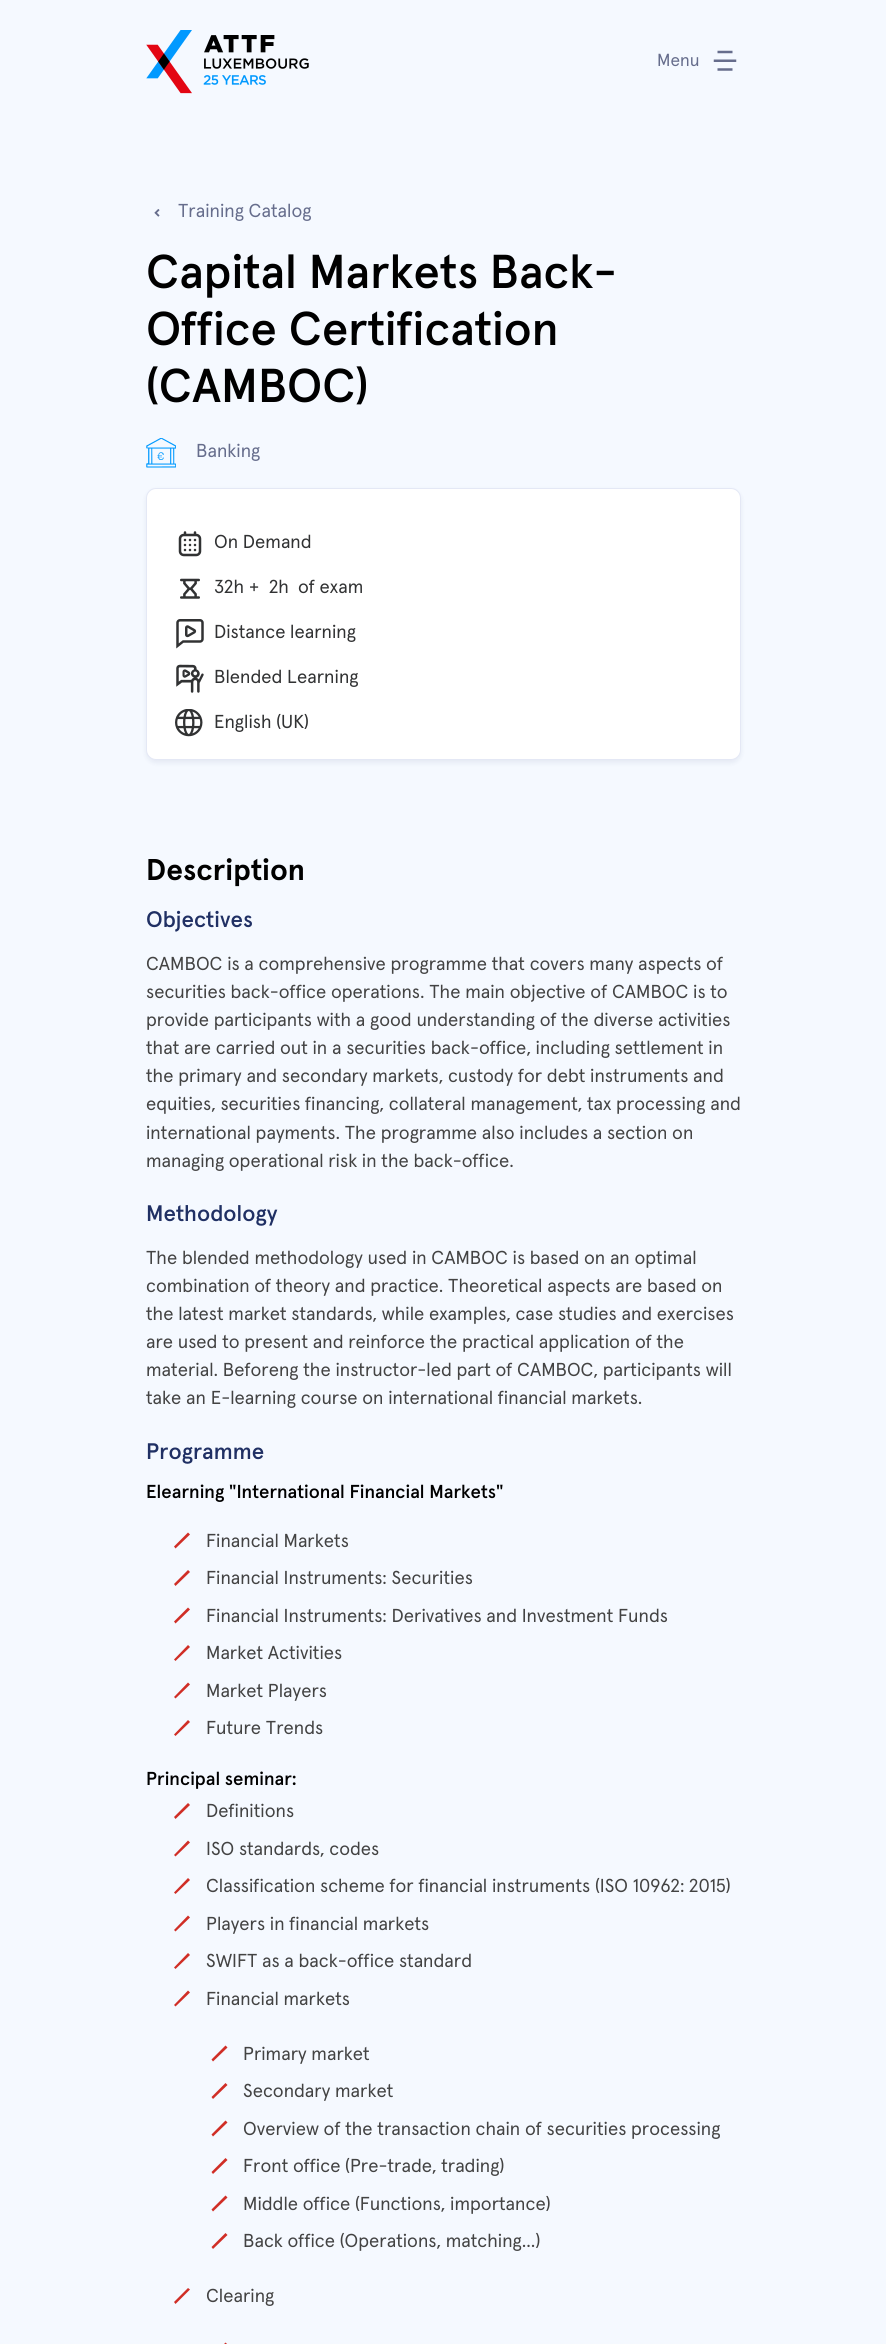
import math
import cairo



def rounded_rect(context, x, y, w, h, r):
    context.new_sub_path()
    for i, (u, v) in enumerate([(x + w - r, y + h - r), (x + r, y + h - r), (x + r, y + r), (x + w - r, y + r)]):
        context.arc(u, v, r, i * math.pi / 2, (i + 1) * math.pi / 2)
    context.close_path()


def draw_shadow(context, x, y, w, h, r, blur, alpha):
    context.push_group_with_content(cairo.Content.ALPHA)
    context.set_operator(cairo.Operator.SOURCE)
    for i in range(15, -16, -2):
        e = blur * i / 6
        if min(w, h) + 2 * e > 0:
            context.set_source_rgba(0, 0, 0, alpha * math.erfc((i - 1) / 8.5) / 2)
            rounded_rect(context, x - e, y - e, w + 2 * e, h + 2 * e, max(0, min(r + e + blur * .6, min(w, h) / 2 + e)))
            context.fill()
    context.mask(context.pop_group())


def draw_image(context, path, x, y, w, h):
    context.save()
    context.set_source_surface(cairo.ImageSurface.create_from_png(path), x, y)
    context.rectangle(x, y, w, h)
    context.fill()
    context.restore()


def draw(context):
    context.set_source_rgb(245 / 255, 249 / 255, 1)
    context.paint()
    draw_image(context, "images/1.png", 146, 30, 163, 64)
    draw_image(context, "images/2.png", 713, 50, 24, 21)
    draw_image(context, "images/3.png", 154, 209, 6, 8)
    draw_image(context, "images/4.png", 146, 438, 30, 30)
    context.set_source_rgb(35 / 255, 55 / 255, 111 / 255)
    draw_shadow(context, 146, 490, 595, 273, 10, 2.5, 0.08)
    context.set_source_rgb(1, 1, 1)
    rounded_rect(context, 146.5, 488.5, 594, 271, 9.5)
    context.fill_preserve()
    context.set_source_rgb(228 / 255, 232 / 255, 245 / 255)
    context.set_line_width(1)
    context.stroke()
    draw_image(context, "images/5.png", 178, 531, 24, 26)
    draw_image(context, "images/6.png", 180, 578, 20, 21)
    draw_image(context, "images/7.png", 176, 619, 28, 30)
    draw_image(context, "images/8.png", 176, 664, 28, 29)
    draw_image(context, "images/9.png", 175, 709, 28, 28)
    context.set_source_rgb(208 / 255, 46 / 255, 38 / 255)
    context.new_path()
    context.move_to(188, 1532.5)
    context.line_to(190, 1534.5)
    context.line_to(175.5, 1548.5)
    context.line_to(174, 1546.5)
    context.close_path()
    context.fill()
    context.new_path()
    context.move_to(188, 1570)
    context.line_to(190, 1572)
    context.line_to(175.5, 1586)
    context.line_to(174, 1584)
    context.close_path()
    context.fill()
    context.new_path()
    context.move_to(188, 1607.5)
    context.line_to(190, 1609.5)
    context.line_to(175.5, 1623.5)
    context.line_to(174, 1621.5)
    context.close_path()
    context.fill()
    context.new_path()
    context.move_to(188, 1645)
    context.line_to(190, 1647)
    context.line_to(175.5, 1661)
    context.line_to(174, 1659.5)
    context.close_path()
    context.fill()
    context.new_path()
    context.move_to(188, 1682.5)
    context.line_to(190, 1684.5)
    context.line_to(175.5, 1698.5)
    context.line_to(174, 1697)
    context.close_path()
    context.fill()
    context.new_path()
    context.move_to(188, 1720)
    context.line_to(190, 1722)
    context.line_to(175.5, 1736)
    context.line_to(174, 1734.5)
    context.close_path()
    context.fill()
    context.new_path()
    context.move_to(188, 1803)
    context.line_to(190, 1805)
    context.line_to(175.5, 1819)
    context.line_to(174, 1817)
    context.close_path()
    context.fill()
    context.new_path()
    context.move_to(188, 1840.5)
    context.line_to(190, 1842.5)
    context.line_to(175.5, 1856.5)
    context.line_to(174, 1855)
    context.close_path()
    context.fill()
    context.new_path()
    context.move_to(188, 1878)
    context.line_to(190, 1880)
    context.line_to(175.5, 1894)
    context.line_to(174, 1892.5)
    context.close_path()
    context.fill()
    context.new_path()
    context.move_to(188, 1915.5)
    context.line_to(190, 1917.5)
    context.line_to(175.5, 1931.5)
    context.line_to(174, 1930)
    context.close_path()
    context.fill()
    context.new_path()
    context.move_to(188, 1953)
    context.line_to(190, 1955)
    context.line_to(175.5, 1969)
    context.line_to(174, 1967.5)
    context.close_path()
    context.fill()
    context.new_path()
    context.move_to(188, 1990.5)
    context.line_to(190, 1992.5)
    context.line_to(175.5, 2006.5)
    context.line_to(174, 2005)
    context.close_path()
    context.fill()
    context.new_path()
    context.move_to(225.5, 2045.5)
    context.line_to(227.5, 2047.5)
    context.line_to(213, 2061.5)
    context.line_to(211.5, 2059.5)
    context.close_path()
    context.fill()
    context.new_path()
    context.move_to(225.5, 2083)
    context.line_to(227.5, 2085)
    context.line_to(213, 2099)
    context.line_to(211.5, 2097)
    context.close_path()
    context.fill()
    context.new_path()
    context.move_to(225.5, 2120.5)
    context.line_to(227.5, 2122.5)
    context.line_to(213, 2136.5)
    context.line_to(211.5, 2134.5)
    context.close_path()
    context.fill()
    context.new_path()
    context.move_to(225.5, 2158)
    context.line_to(227.5, 2160)
    context.line_to(213, 2174)
    context.line_to(211.5, 2172)
    context.close_path()
    context.fill()
    context.new_path()
    context.move_to(225.5, 2195.5)
    context.line_to(227.5, 2197.5)
    context.line_to(213, 2211.5)
    context.line_to(211.5, 2209.5)
    context.close_path()
    context.fill()
    context.new_path()
    context.move_to(225.5, 2233)
    context.line_to(227.5, 2235)
    context.line_to(213, 2249)
    context.line_to(211.5, 2247)
    context.close_path()
    context.fill()
    context.select_font_face("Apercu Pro")
    context.set_font_size(17.5)
    context.set_source_rgb(102 / 255, 109 / 255, 140 / 255)
    context.move_to(657, 66)
    context.show_text("Menu")
    context.set_font_size(18.75)
    context.move_to(178, 217)
    context.show_text("Training Catalog")
    context.select_font_face("Apercu Pro Medium")
    context.set_font_size(47.5)
    context.set_source_rgb(0, 0, 0)
    context.move_to(146, 288)
    context.show_text("Capital Markets Back-")
    context.move_to(146, 345)
    context.show_text("Office Certification")
    context.move_to(146, 402)
    context.show_text("(CAMBOC)")
    context.select_font_face("Apercu Pro")
    context.set_font_size(18.75)
    context.set_source_rgb(102 / 255, 109 / 255, 140 / 255)
    context.move_to(196, 457)
    context.show_text("Banking")
    context.set_source_rgb(49 / 255, 50 / 255, 51 / 255)
    context.move_to(214, 548)
    context.show_text("On Demand")
    context.move_to(214, 593)
    context.show_text("32h +")
    context.move_to(269, 593)
    context.show_text("2h")
    context.move_to(298, 593)
    context.show_text("of exam")
    context.move_to(214, 638)
    context.show_text("Distance learning")
    context.move_to(214, 683)
    context.show_text("Blended Learning")
    context.move_to(214, 728)
    context.show_text("English (UK)")
    context.select_font_face("Apercu Pro", cairo.FontSlant.NORMAL, cairo.FontWeight.BOLD)
    context.set_font_size(30)
    context.set_source_rgb(0, 0, 0)
    context.move_to(146, 880)
    context.show_text("Description")
    context.select_font_face("Apercu Pro Medium")
    context.set_font_size(22.5)
    context.set_source_rgb(32 / 255, 48 / 255, 100 / 255)
    context.move_to(146, 927)
    context.show_text("Objectives")
    context.select_font_face("Apercu Pro")
    context.set_font_size(18.75)
    context.set_source_rgb(67 / 255, 67 / 255, 67 / 255)
    context.move_to(146, 970)
    context.show_text("CAMBOC is a comprehensive programme that covers many aspects of")
    context.move_to(146, 998)
    context.show_text("securities back-office operations. The main objective of CAMBOC is to")
    context.move_to(146, 1026)
    context.show_text("provide participants with a good understanding of the diverse activities")
    context.move_to(146, 1054)
    context.show_text("that are carried out in a securities back-office, including settlement in")
    context.move_to(146, 1082)
    context.show_text("the primary and secondary markets, custody for debt instruments and")
    context.move_to(146, 1110)
    context.show_text("equities, securities financing, collateral management, tax processing and")
    context.move_to(146, 1139)
    context.show_text("international payments. The programme also includes a section on")
    context.move_to(146, 1167)
    context.show_text("managing operational risk in the back-office.")
    context.select_font_face("Apercu Pro Medium")
    context.set_font_size(22.5)
    context.set_source_rgb(32 / 255, 48 / 255, 100 / 255)
    context.move_to(146, 1221)
    context.show_text("Methodology")
    context.select_font_face("Apercu Pro")
    context.set_font_size(18.75)
    context.set_source_rgb(67 / 255, 67 / 255, 67 / 255)
    context.move_to(146, 1264)
    context.show_text("The blended methodology used in CAMBOC is based on an optimal")
    context.move_to(146, 1292)
    context.show_text("combination of theory and practice. Theoretical aspects are based on")
    context.move_to(146, 1320)
    context.show_text("the latest market standards, while examples, case studies and exercises")
    context.move_to(146, 1348)
    context.show_text("are used to present and reinforce the practical application of the")
    context.move_to(146, 1376)
    context.show_text("material. Beforeng the instructor-led part of CAMBOC, participants will")
    context.move_to(146, 1404)
    context.show_text("take an E-learning course on international financial markets.")
    context.select_font_face("Apercu Pro Medium")
    context.set_font_size(22.5)
    context.set_source_rgb(32 / 255, 48 / 255, 100 / 255)
    context.move_to(146, 1459)
    context.show_text("Programme")
    context.set_font_size(18.75)
    context.set_source_rgb(0, 0, 0)
    context.move_to(146, 1498)
    context.show_text("Elearning \"International Financial Markets\"")
    context.select_font_face("Apercu Pro")
    context.set_source_rgb(67 / 255, 67 / 255, 67 / 255)
    context.move_to(206, 1547)
    context.show_text("Financial Markets")
    context.move_to(206, 1584)
    context.show_text("Financial Instruments: Securities")
    context.move_to(206, 1622)
    context.show_text("Financial Instruments: Derivatives and Investment Funds")
    context.move_to(206, 1659)
    context.show_text("Market Activities")
    context.move_to(206, 1697)
    context.show_text("Market Players")
    context.move_to(206, 1734)
    context.show_text("Future Trends")
    context.select_font_face("Apercu Pro Medium")
    context.set_source_rgb(0, 0, 0)
    context.move_to(146, 1785)
    context.show_text("Principal seminar:")
    context.select_font_face("Apercu Pro")
    context.set_source_rgb(67 / 255, 67 / 255, 67 / 255)
    context.move_to(206, 1817)
    context.show_text("Definitions")
    context.move_to(206, 1855)
    context.show_text("ISO standards, codes")
    context.move_to(206, 1892)
    context.show_text("Classification scheme for financial instruments (ISO 10962: 2015)")
    context.move_to(206, 1930)
    context.show_text("Players in financial markets")
    context.move_to(206, 1967)
    context.show_text("SWIFT as a back-office standard")
    context.move_to(206, 2005)
    context.show_text("Financial markets")
    context.move_to(243, 2060)
    context.show_text("Primary market")
    context.move_to(243, 2097)
    context.show_text("Secondary market")
    context.move_to(243, 2135)
    context.show_text("Overview of the transaction chain of securities processing")
    context.move_to(243, 2172)
    context.show_text("Front office (Pre-trade, trading)")
    context.move_to(243, 2210)
    context.show_text("Middle office (Functions, importance)")
    context.move_to(243, 2247)
    context.show_text("Back office (Operations, matching...)")
    context.move_to(206, 2302)
    context.show_text("Clearing")
    context.set_source_rgb(208 / 255, 46 / 255, 38 / 255)
    context.new_path()
    context.move_to(188, 2288)
    context.line_to(190, 2289.5)
    context.line_to(175.5, 2304)
    context.line_to(174, 2302)
    context.close_path()
    context.move_to(225.5, 2342.5)
    context.line_to(227.5, 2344.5)
    context.line_to(213, 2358.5)
    context.line_to(211.5, 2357)
    context.close_path()
    context.fill()


surface = cairo.ImageSurface(cairo.Format.RGB24, 886, 2344)
context = cairo.Context(surface)
options = cairo.FontOptions()
options.set_hint_metrics(cairo.HintMetrics.OFF)
options.set_hint_style(cairo.HintStyle.NONE)
context.set_font_options(options)
context.set_miter_limit(4)
draw(context)
surface.write_to_png("out.png")
